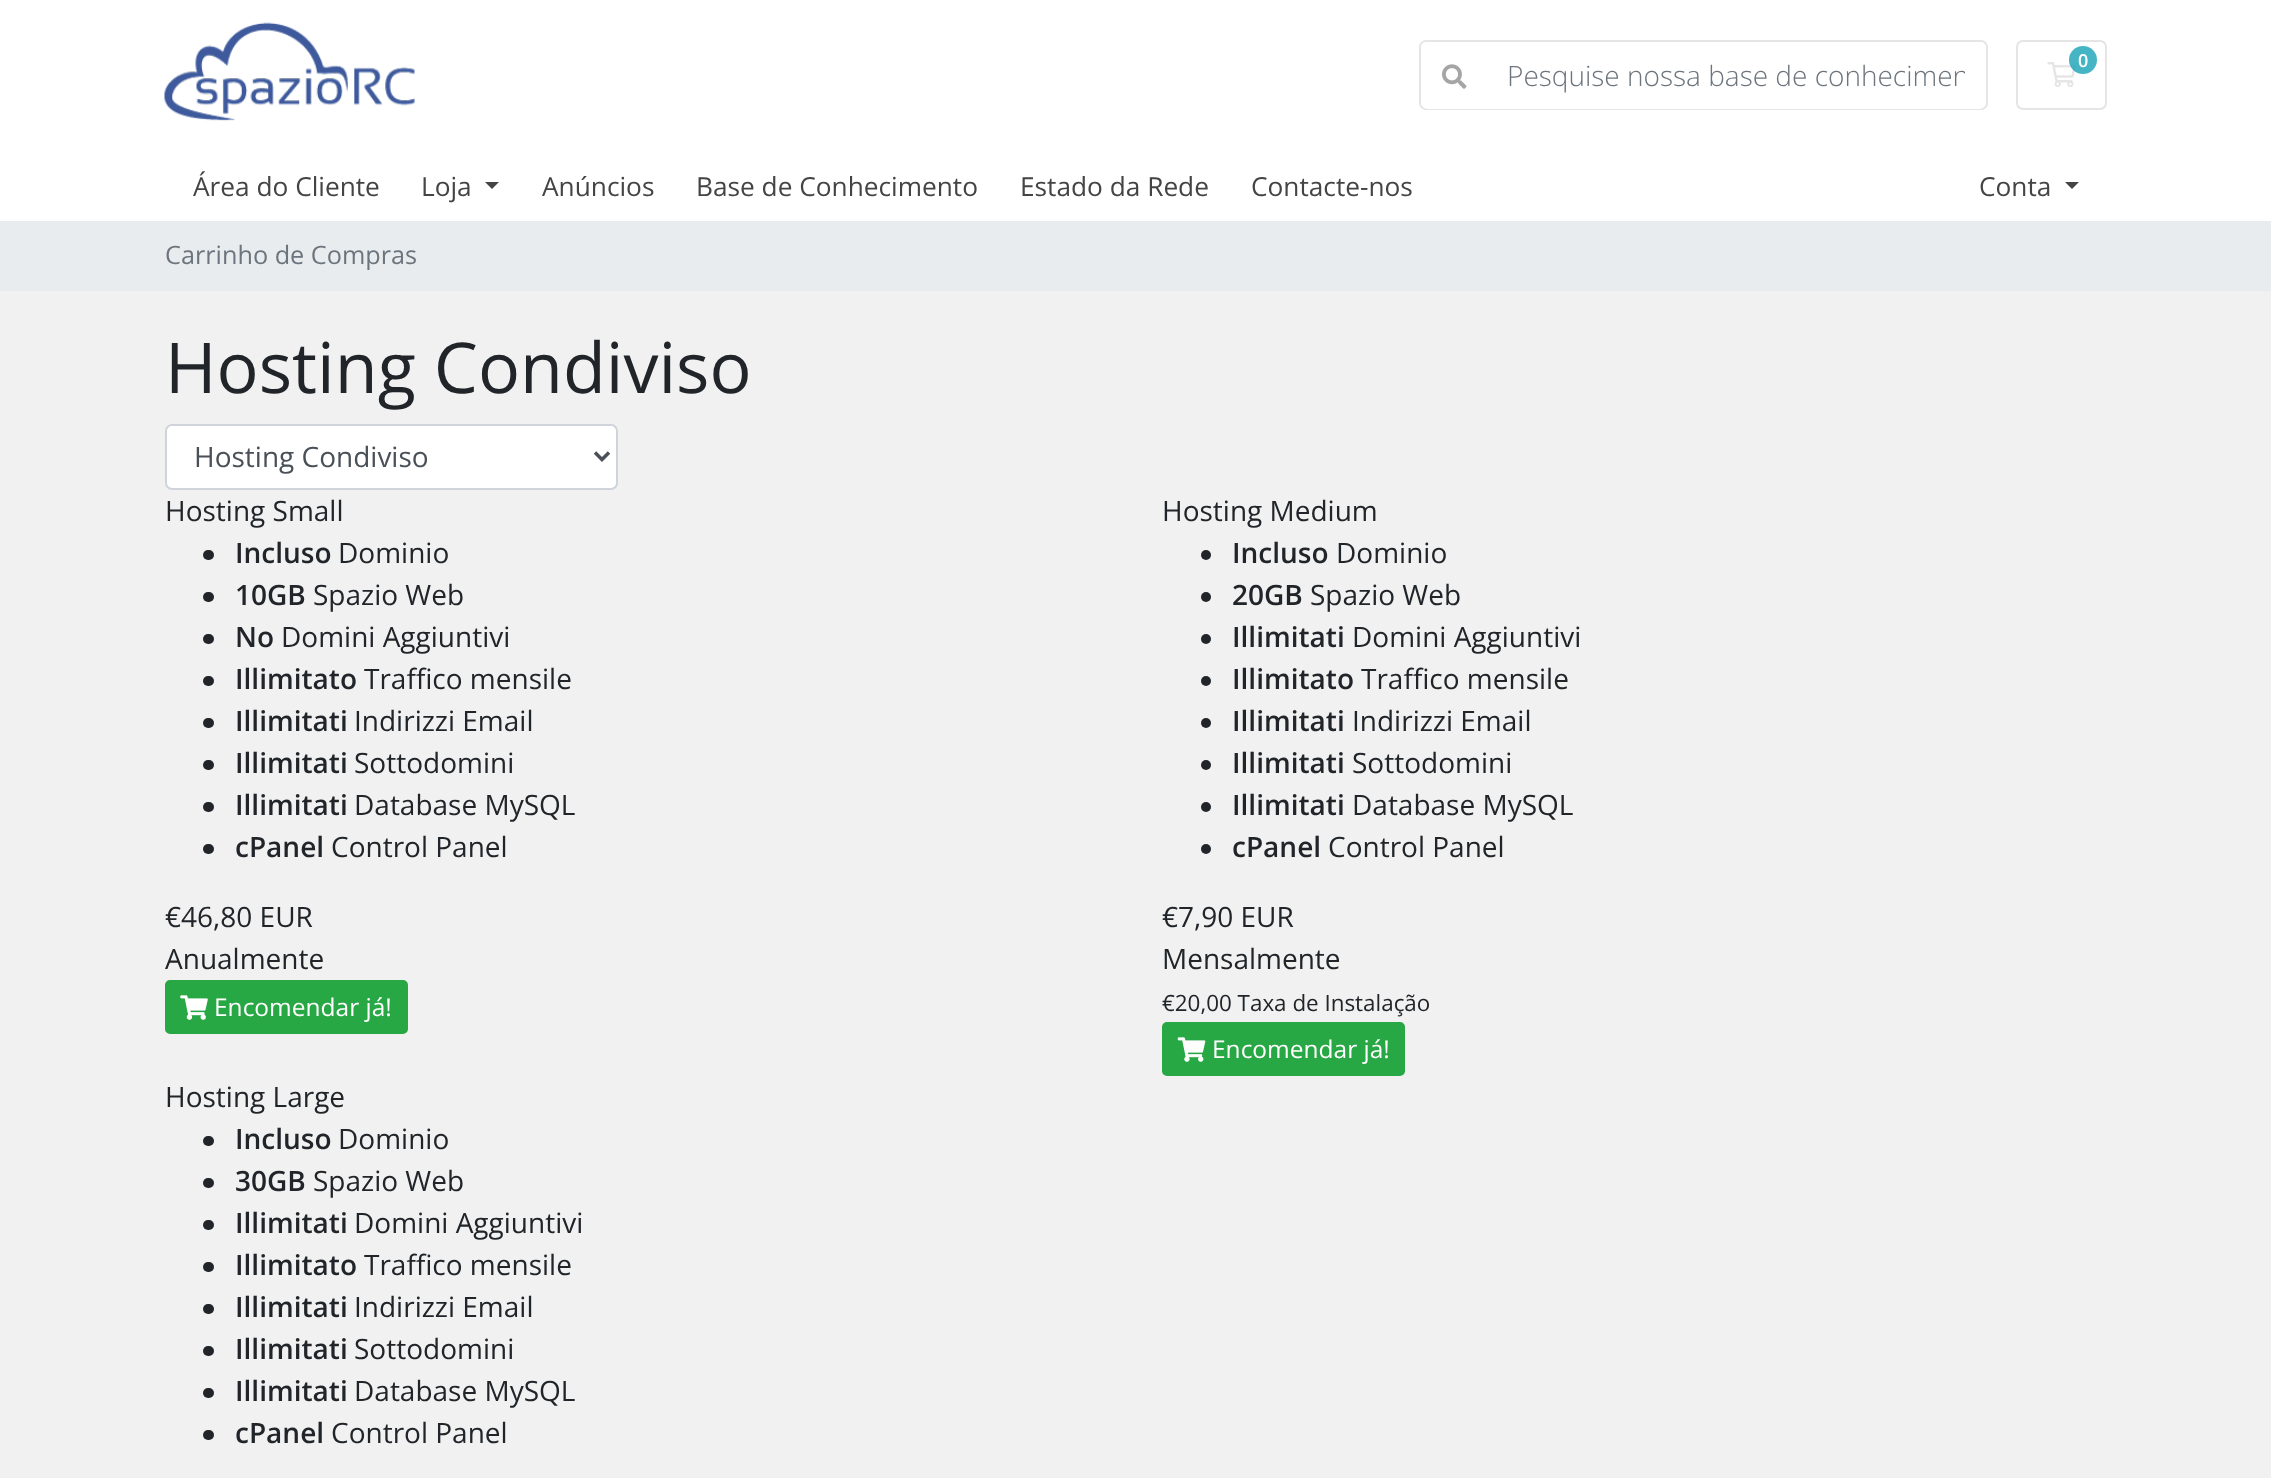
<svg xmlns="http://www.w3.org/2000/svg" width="2271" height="1478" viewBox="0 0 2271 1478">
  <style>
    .t1 { font: 600 18px Open Sans; fill: #fff; }
    .t2 { font: 300 28px Open Sans; fill: #6c757d; }
    .t3 { font: 26.25px Open Sans; fill: #444; }
    .t4 { font: 25.25px Open Sans; fill: #6c757d; }
    .t5 { font: 70px Open Sans; fill: #212529; }
    .t6 { font: 28px Open Sans; fill: #495057; }
    .t7 { font: 28px Open Sans; fill: #212529; }
    .t8 { font: 600 28px Open Sans; fill: #212529; }
    .t9 { font: 24.5px Open Sans; fill: #fff; }
    .t10 { font: 22.4px Open Sans; fill: #212529; }
  </style>
  <defs>
    <clipPath id="clip1"><rect x="1507" y="56" width="458" height="39"/></clipPath>
  </defs>
  <rect width="100%" height="100%" fill="#f1f1f1"/>
  <rect x="0" y="0" width="2271" height="221" fill="#fff"/>
  <image x="164" y="22" width="251" height="99" href="images/1.png"/>
  <rect x="2017" y="41" width="89" height="68" rx="6" fill="none" stroke="#e5e5e5" stroke-width="2"/>
  <image x="2047" y="62" width="29" height="25" href="images/2.png"/>
  <circle cx="2083" cy="60" r="14" fill="#17a2b8cc"/>
  <text x="2078" y="67" class="t1">0</text>
  <rect x="1420" y="41" width="567" height="68" rx="6" fill="none" stroke="#e5e5e5" stroke-width="2"/>
  <path d="M1486 42H1979C1983 42 1986 45 1986 49V102C1986 106 1983 109 1979 109H1486Z" fill="#fff"/>
  <path d="M1428 42H1488V109H1428C1424 109 1421 106 1421 102V49C1421 45 1424 42 1428 42Z" fill="#fff"/>
  <image x="1442" y="64" width="25" height="25" href="images/3.png"/>
  <g clip-path="url(#clip1)">
    <text x="1507" y="86" class="t2">Pesquise nossa base de conhecimen</text>
  </g>
  <text x="193" y="196" class="t3">Área do Cliente</text>
  <text x="421" y="196" class="t3">Loja</text>
  <path d="M485 182H499L492 189Z" fill="#444"/>
  <text x="542" y="196" class="t3">Anúncios</text>
  <text x="696" y="196" class="t3">Base de Conhecimento</text>
  <text x="1020" y="196" class="t3">Estado da Rede</text>
  <text x="1251" y="196" class="t3">Contacte-nos</text>
  <text x="1979" y="196" class="t3">Conta</text>
  <path d="M2065 182H2079L2072 189Z" fill="#444"/>
  <rect x="0" y="221" width="2271" height="70" fill="#e9ecef"/>
  <text x="165" y="264" class="t4">Carrinho de Compras</text>
  <text x="165" y="393" class="t5">Hosting Condiviso</text>
  <rect x="166" y="425" width="451" height="64" rx="6" fill="#fff" stroke="#ced4da" stroke-width="2"/>
  <path d="M595 452.5L602 459.5L609 452.5" fill="none" stroke="#495057" stroke-width="3.5"/>
  <text x="194" y="467" class="t6">Hosting Condiviso</text>
  <text x="165" y="521" class="t7">Hosting Small</text>
  <rect x="203" y="550" width="11" height="10" rx="5" fill="#212529"/>
  <text x="235" y="563" class="t8">Incluso</text>
  <text x="338" y="563" class="t7">Dominio</text>
  <rect x="203" y="592" width="11" height="10" rx="5" fill="#212529"/>
  <text x="235" y="605" class="t8">10GB</text>
  <text x="313" y="605" class="t7">Spazio Web</text>
  <rect x="203" y="634" width="11" height="10" rx="5" fill="#212529"/>
  <text x="235" y="647" class="t8">No</text>
  <text x="281" y="647" class="t7">Domini Aggiuntivi</text>
  <rect x="203" y="676" width="11" height="10" rx="5" fill="#212529"/>
  <text x="235" y="689" class="t8">Illimitato</text>
  <text x="364" y="689" class="t7">Traffico mensile</text>
  <rect x="203" y="718" width="11" height="10" rx="5" fill="#212529"/>
  <text x="235" y="731" class="t8">Illimitati</text>
  <text x="354" y="731" class="t7">Indirizzi Email</text>
  <rect x="203" y="760" width="11" height="10" rx="5" fill="#212529"/>
  <text x="235" y="773" class="t8">Illimitati</text>
  <text x="354" y="773" class="t7">Sottodomini</text>
  <rect x="203" y="802" width="11" height="10" rx="5" fill="#212529"/>
  <text x="235" y="815" class="t8">Illimitati</text>
  <text x="354" y="815" class="t7">Database MySQL</text>
  <rect x="203" y="844" width="11" height="10" rx="5" fill="#212529"/>
  <text x="235" y="857" class="t8">cPanel</text>
  <text x="331" y="857" class="t7">Control Panel</text>
  <text x="165" y="927" class="t7">€46,80 EUR</text>
  <text x="165" y="969" class="t7">Anualmente</text>
  <rect x="166" y="981" width="241" height="52" rx="4" fill="#28a745" stroke="#28a745" stroke-width="2"/>
  <image x="180" y="995" width="28" height="25" href="images/4.png"/>
  <text x="214" y="1016" class="t9">Encomendar já!</text>
  <text x="1162" y="521" class="t7">Hosting Medium</text>
  <circle cx="1206" cy="555" r="5" fill="#212529"/>
  <text x="1232" y="563" class="t8">Incluso</text>
  <text x="1336" y="563" class="t7">Dominio</text>
  <circle cx="1206" cy="597" r="5" fill="#212529"/>
  <text x="1232" y="605" class="t8">20GB</text>
  <text x="1310" y="605" class="t7">Spazio Web</text>
  <circle cx="1206" cy="639" r="5" fill="#212529"/>
  <text x="1232" y="647" class="t8">Illimitati</text>
  <text x="1352" y="647" class="t7">Domini Aggiuntivi</text>
  <circle cx="1206" cy="681" r="5" fill="#212529"/>
  <text x="1232" y="689" class="t8">Illimitato</text>
  <text x="1361" y="689" class="t7">Traffico mensile</text>
  <circle cx="1206" cy="723" r="5" fill="#212529"/>
  <text x="1232" y="731" class="t8">Illimitati</text>
  <text x="1352" y="731" class="t7">Indirizzi Email</text>
  <circle cx="1206" cy="765" r="5" fill="#212529"/>
  <text x="1232" y="773" class="t8">Illimitati</text>
  <text x="1352" y="773" class="t7">Sottodomini</text>
  <circle cx="1206" cy="807" r="5" fill="#212529"/>
  <text x="1232" y="815" class="t8">Illimitati</text>
  <text x="1352" y="815" class="t7">Database MySQL</text>
  <circle cx="1206" cy="849" r="5" fill="#212529"/>
  <text x="1232" y="857" class="t8">cPanel</text>
  <text x="1328" y="857" class="t7">Control Panel</text>
  <text x="1162" y="927" class="t7">€7,90 EUR</text>
  <text x="1162" y="969" class="t7">Mensalmente</text>
  <text x="1162" y="1011" class="t10">€20,00 Taxa de Instalação</text>
  <rect x="1163" y="1023" width="241" height="52" rx="4" fill="#28a745" stroke="#28a745" stroke-width="2"/>
  <image x="1177" y="1037" width="29" height="25" href="images/5.png"/>
  <text x="1212" y="1058" class="t9">Encomendar já!</text>
  <text x="165" y="1107" class="t7">Hosting Large</text>
  <rect x="203" y="1136" width="11" height="10" rx="5" fill="#212529"/>
  <text x="235" y="1149" class="t8">Incluso</text>
  <text x="338" y="1149" class="t7">Dominio</text>
  <rect x="203" y="1178" width="11" height="10" rx="5" fill="#212529"/>
  <text x="235" y="1191" class="t8">30GB</text>
  <text x="313" y="1191" class="t7">Spazio Web</text>
  <rect x="203" y="1220" width="11" height="10" rx="5" fill="#212529"/>
  <text x="235" y="1233" class="t8">Illimitati</text>
  <text x="354" y="1233" class="t7">Domini Aggiuntivi</text>
  <rect x="203" y="1262" width="11" height="10" rx="5" fill="#212529"/>
  <text x="235" y="1275" class="t8">Illimitato</text>
  <text x="364" y="1275" class="t7">Traffico mensile</text>
  <rect x="203" y="1304" width="11" height="10" rx="5" fill="#212529"/>
  <text x="235" y="1317" class="t8">Illimitati</text>
  <text x="354" y="1317" class="t7">Indirizzi Email</text>
  <rect x="203" y="1346" width="11" height="10" rx="5" fill="#212529"/>
  <text x="235" y="1359" class="t8">Illimitati</text>
  <text x="354" y="1359" class="t7">Sottodomini</text>
  <rect x="203" y="1388" width="11" height="10" rx="5" fill="#212529"/>
  <text x="235" y="1401" class="t8">Illimitati</text>
  <text x="354" y="1401" class="t7">Database MySQL</text>
  <rect x="203" y="1430" width="11" height="10" rx="5" fill="#212529"/>
  <text x="235" y="1443" class="t8">cPanel</text>
  <text x="331" y="1443" class="t7">Control Panel</text>
</svg>
